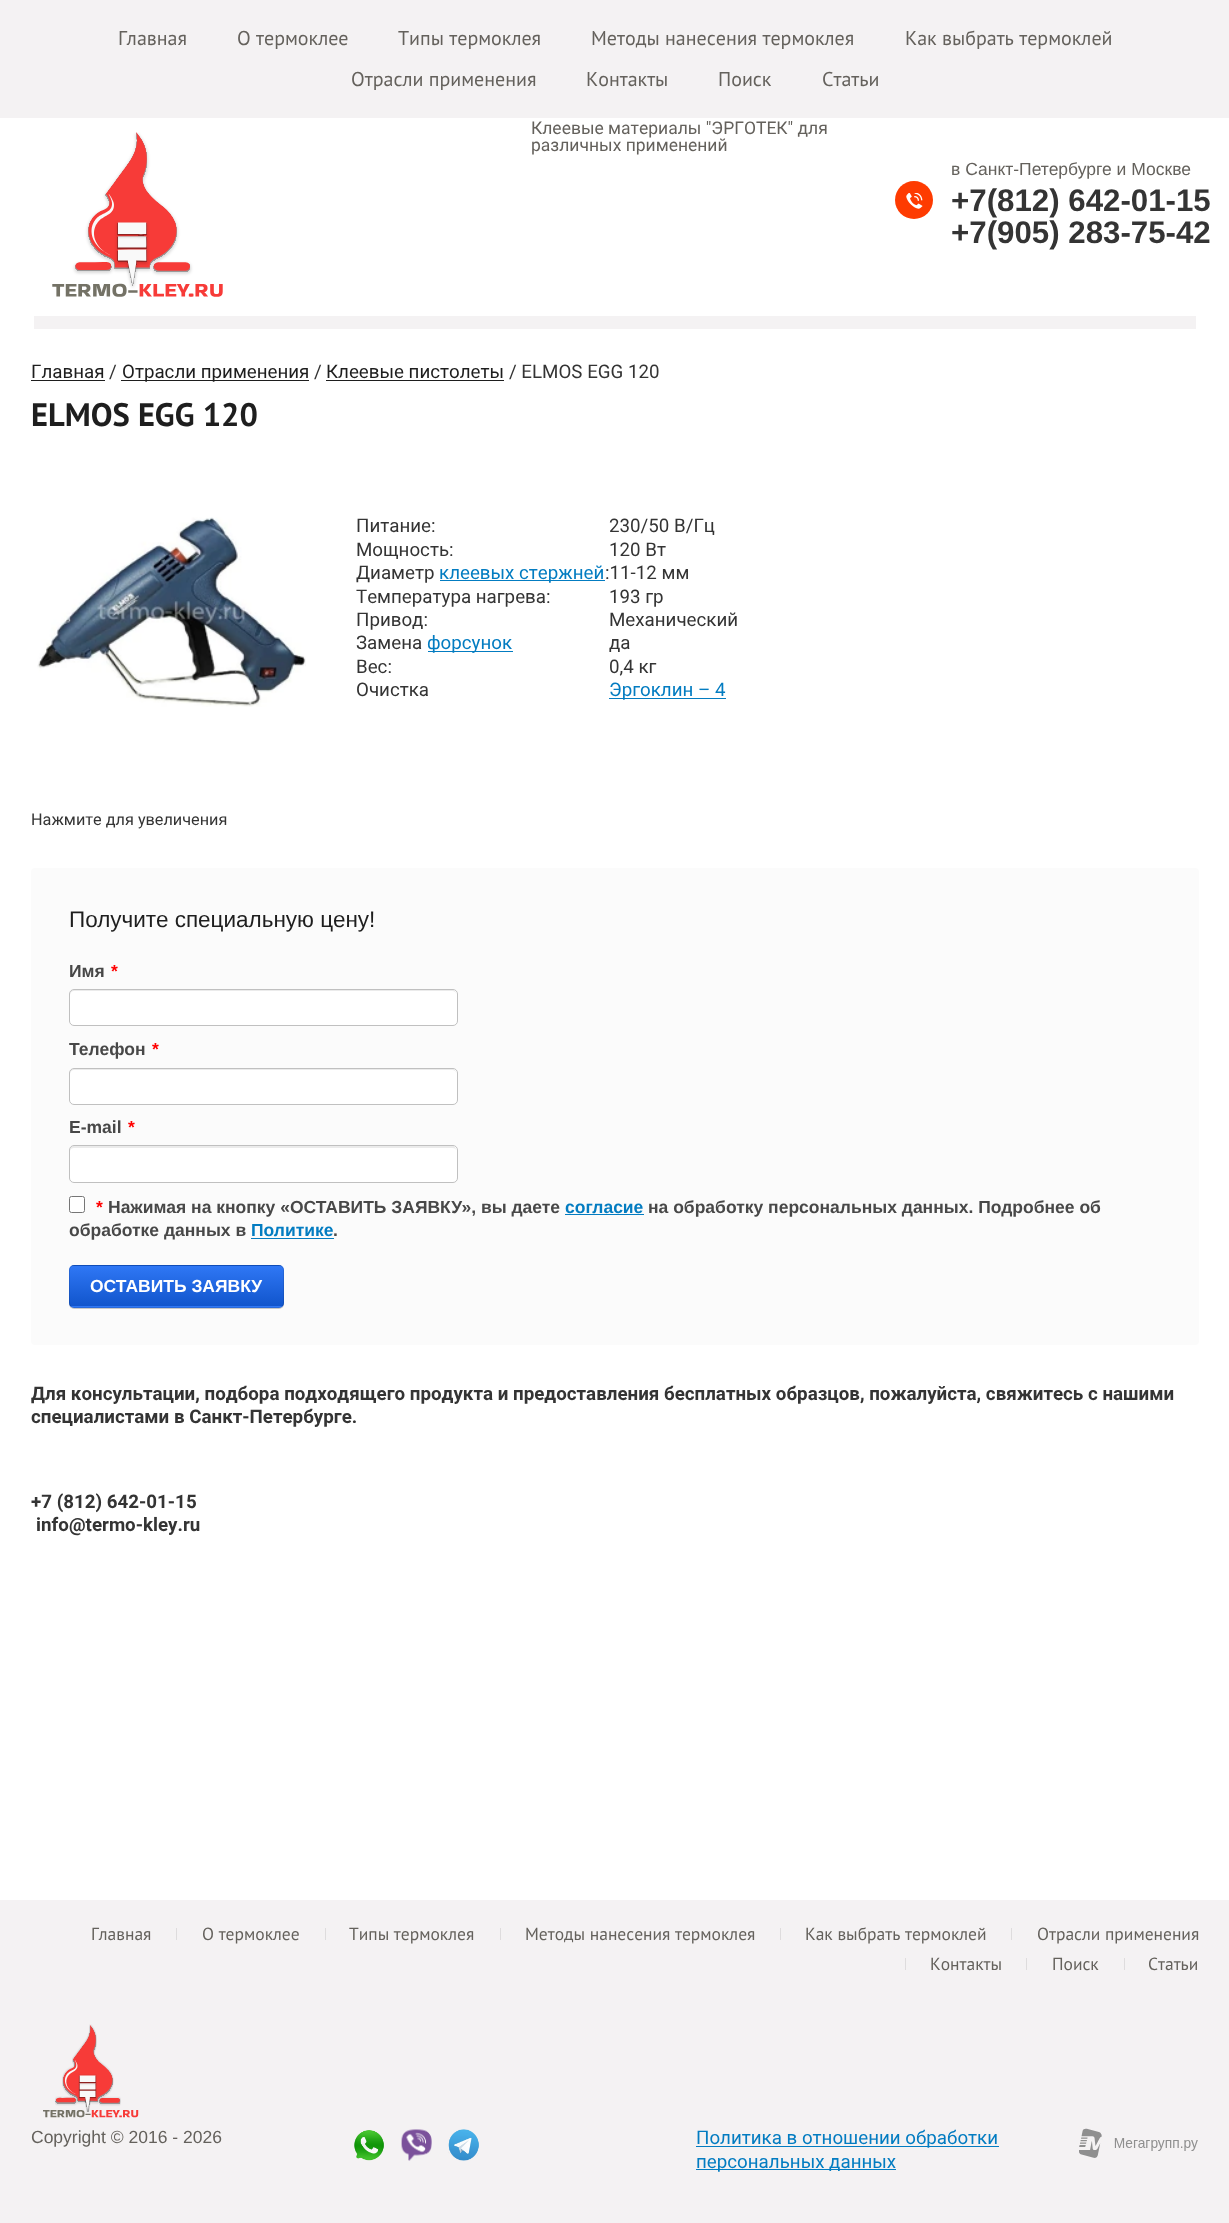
<svg xmlns="http://www.w3.org/2000/svg" width="1229" height="2223" viewBox="0 0 1229 2223">
  <style>
    .t1 { font: 20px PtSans; fill: #64615c; }
    .t2 { font: 17.5px Roboto; fill: #64615c; }
    .t3 { font: 17.5px Liberation Sans; fill: #64615c; }
    .t4 { font: bold 31.25px Liberation Sans; fill: #343434; }
    .t5 { font: 18.75px Roboto; fill: #1e1e1e; }
    .t6 { font: 18.75px Roboto; fill: #343434; }
    .t7 { font: bold 32.5px PtSans; fill: #1e1e1e; }
    .t8 { font: 18.75px Roboto; fill: #037cc1; }
    .t9 { font: 16.25px Roboto; fill: #343434; }
    .t10 { font: 22.5px Liberation Sans; fill: #1e1e1e; }
    .t11 { font: bold 17.5px Liberation Sans; fill: #484848; }
    .t12 { font: bold 17.5px Liberation Sans; fill: #f00; }
    .t13 { font: bold 17.5px Liberation Sans; fill: #037cc1; }
    .t14 { font: bold 17.5px Liberation Sans; fill: #fff; }
    .t15 { font: bold 18.75px Roboto; fill: #343434; }
    .t16 { font: 17.5px PtSans; fill: #64615c; }
  </style>
  <defs>
    <clipPath id="clip1"><rect x="69" y="1265" width="215" height="43" rx="5"/></clipPath>
    <linearGradient id="g1" gradientUnits="userSpaceOnUse" x1="176" y1="1226" x2="176" y2="1266"><stop offset="0" stop-color="#2f77f5"/><stop offset="1" stop-color="#15c"/></linearGradient>
    <linearGradient id="g2" gradientUnits="userSpaceOnUse" x1="176" y1="1266" x2="176" y2="1306"><stop offset="0" stop-color="#2f77f5"/><stop offset="1" stop-color="#15c"/></linearGradient>
    <linearGradient id="g3" gradientUnits="userSpaceOnUse" x1="176" y1="1306" x2="176" y2="1346"><stop offset="0" stop-color="#2f77f5"/><stop offset="1" stop-color="#15c"/></linearGradient>
  </defs>
  <rect width="100%" height="100%" fill="#fff"/>
  <rect x="0" y="0" width="1229" height="118" fill="#f4f2f3"/>
  <text x="118" y="45" class="t1">Главная</text>
  <text x="237" y="45" class="t1">О термоклее</text>
  <text x="398" y="45" class="t1">Типы термоклея</text>
  <text x="591" y="45" class="t1">Методы нанесения термоклея</text>
  <text x="905" y="45" class="t1">Как выбрать термоклей</text>
  <text x="351" y="86" class="t1">Отрасли применения</text>
  <text x="586" y="86" class="t1">Контакты</text>
  <text x="718" y="86" class="t1">Поиск</text>
  <text x="822" y="86" class="t1">Статьи</text>
  <image x="52" y="132" width="171" height="165" href="images/1.png"/>
  <text x="531" y="134" class="t2">Клеевые материалы "ЭРГОТЕК" для</text>
  <text x="531" y="151" class="t2">различных применений</text>
  <text x="951" y="175" class="t3">в Санкт-Петербурге и Москве</text>
  <circle cx="914" cy="200" r="19" fill="#fe3b01"/>
  <image x="906" y="193" width="17" height="16" href="images/2.png"/>
  <text x="951" y="211" class="t4">+7(812) 642-01-15</text>
  <text x="951" y="243" class="t4">+7(905) 283-75-42</text>
  <rect x="34" y="316" width="1162" height="13" fill="#f4f2f3"/>
  <text x="31" y="378" class="t5">Главная</text>
  <rect x="31" y="380" width="74" height="1" fill="#1e1e1e"/>
  <text x="109" y="378" class="t6">/</text>
  <rect x="121" y="380" width="188" height="1" fill="#1e1e1e"/>
  <text x="122" y="378" class="t5">Отрасли применения</text>
  <text x="314" y="378" class="t6">/</text>
  <text x="326" y="378" class="t5">Клеевые пистолеты</text>
  <rect x="326" y="380" width="178" height="1" fill="#1e1e1e"/>
  <text x="509" y="378" class="t6">/ ELMOS EGG 120</text>
  <text x="31" y="426" class="t7">ELMOS EGG 120</text>
  <image x="37" y="517" width="269" height="190" href="images/3.png"/>
  <text x="356" y="532" class="t6">Питание:</text>
  <text x="609" y="532" class="t6">230/50 В/Гц</text>
  <text x="356" y="556" class="t6">Мощность:</text>
  <text x="609" y="556" class="t6">120 Вт</text>
  <text x="356" y="579" class="t6">Диаметр</text>
  <rect x="440" y="580" width="165" height="1" fill="#037cc1"/>
  <text x="439" y="579" class="t8">клеевых стержней</text>
  <text x="605" y="579" class="t6">:11-12 мм</text>
  <text x="356" y="603" class="t6">Температура нагрева:</text>
  <text x="609" y="603" class="t6">193 гр</text>
  <text x="356" y="626" class="t6">Привод:</text>
  <text x="609" y="626" class="t6">Механический</text>
  <text x="356" y="649" class="t6">Замена</text>
  <rect x="428" y="651" width="85" height="1" fill="#037cc1"/>
  <text x="427" y="649" class="t8">форсунок</text>
  <text x="609" y="649" class="t6">да</text>
  <text x="356" y="673" class="t6">Вес:</text>
  <text x="609" y="673" class="t6">0,4 кг</text>
  <text x="356" y="696" class="t6">Очистка</text>
  <rect x="609" y="698" width="117" height="1" fill="#037cc1"/>
  <text x="609" y="696" class="t8">Эргоклин – 4</text>
  <text x="31" y="825" class="t9">Нажмите для увеличения</text>
  <rect x="31" y="868" width="1168" height="477" rx="4" fill="#fbfbfb"/>
  <text x="69" y="927" class="t10">Получите специальную цену!</text>
  <text x="69" y="977" class="t11">Имя</text>
  <text x="111" y="977" class="t12">*</text>
  <rect x="69" y="989" width="389" height="37" rx="5" fill="#fff"/>
  <path d="M74 991H452C455 991 456 993 456 995C456 992 455 990 452 990H74C71 990 70 992 70 995C70 993 72 991 74 991Z" fill="#ebebeb"/>
  <rect x="69.5" y="989.5" width="388" height="36" rx="4.5" fill="none" stroke="#c0c0c0"/>
  <text x="69" y="1055" class="t11">Телефон</text>
  <text x="152" y="1055" class="t12">*</text>
  <rect x="69" y="1068" width="389" height="37" rx="5" fill="#fff"/>
  <path d="M74 1070H452C455 1070 456 1072 456 1074C456 1071 455 1069 452 1069H74C71 1069 70 1071 70 1074C70 1072 72 1070 74 1070Z" fill="#ebebeb"/>
  <rect x="69.5" y="1068.5" width="388" height="36" rx="4.5" fill="none" stroke="#c0c0c0"/>
  <text x="69" y="1133" class="t11">E-mail</text>
  <text x="128" y="1133" class="t12">*</text>
  <rect x="69" y="1145" width="389" height="38" rx="5" fill="#fff"/>
  <path d="M74 1148H452C455 1148 456 1149 456 1151C456 1148 455 1146 452 1146H74C71 1146 70 1148 70 1151C70 1149 72 1148 74 1148Z" fill="#ebebeb"/>
  <rect x="69.5" y="1145.5" width="388" height="37" rx="4.5" fill="none" stroke="#c0c0c0"/>
  <rect x="69.5" y="1196.5" width="15" height="16" rx="2" fill="#fff" stroke="#767676"/>
  <text x="96" y="1213" class="t12">*</text>
  <text x="108" y="1213" class="t11">Нажимая на кнопку «ОСТАВИТЬ ЗАЯВКУ», вы даете</text>
  <text x="565" y="1213" class="t13">согласие</text>
  <rect x="565" y="1214" width="79" height="1" fill="#037cc1"/>
  <text x="648" y="1213" class="t11">на обработку персональных данных. Подробнее об</text>
  <text x="69" y="1236" class="t11">обработке данных в</text>
  <text x="251" y="1236" class="t13">Политике</text>
  <rect x="251" y="1238" width="83" height="1" fill="#037cc1"/>
  <text x="333" y="1236" class="t11">.</text>
  <rect x="69" y="1266" width="215" height="43" rx="5" fill="#00000033" filter="blur(0.5px)"/>
  <g clip-path="url(#clip1)">
    <rect x="69" y="1265" width="215" height="1" fill="url(#g1)"/>
    <rect x="69" y="1266" width="215" height="40" fill="url(#g2)"/>
    <rect x="69" y="1306" width="215" height="2" fill="url(#g3)"/>
  </g>
  <rect x="69.5" y="1265.5" width="214" height="42" rx="4.5" fill="none" stroke="#0000001a"/>
  <text x="90" y="1292" class="t14">ОСТАВИТЬ ЗАЯВКУ</text>
  <text x="31" y="1400" class="t15">Для консультации, подбора подходящего продукта и предоставления бесплатных образцов, пожалуйста, свяжитесь с нашими</text>
  <text x="31" y="1423" class="t15">специалистами в Санкт-Петербурге.</text>
  <text x="31" y="1508" class="t15">+7 (812) 642-01-15</text>
  <text x="36" y="1531" class="t15">info@termo-kley.ru</text>
  <rect x="0" y="1900" width="1229" height="323" fill="#f4f2f3"/>
  <text x="91" y="1940" class="t16">Главная</text>
  <rect x="176" y="1928" width="1" height="12" fill="#dedcdd"/>
  <text x="202" y="1940" class="t16">О термоклее</text>
  <rect x="325" y="1928" width="1" height="12" fill="#dedcdd"/>
  <text x="349" y="1940" class="t16">Типы термоклея</text>
  <rect x="500" y="1928" width="1" height="12" fill="#dedcdd"/>
  <text x="525" y="1940" class="t16">Методы нанесения термоклея</text>
  <rect x="780" y="1928" width="1" height="12" fill="#dedcdd"/>
  <text x="805" y="1940" class="t16">Как выбрать термоклей</text>
  <rect x="1011" y="1928" width="1" height="12" fill="#dedcdd"/>
  <text x="1037" y="1940" class="t16">Отрасли применения</text>
  <rect x="905" y="1958" width="1" height="12" fill="#dedcdd"/>
  <text x="930" y="1970" class="t16">Контакты</text>
  <rect x="1026" y="1958" width="1" height="12" fill="#dedcdd"/>
  <text x="1052" y="1970" class="t16">Поиск</text>
  <rect x="1124" y="1958" width="1" height="12" fill="#dedcdd"/>
  <text x="1148" y="1970" class="t16">Статьи</text>
  <image x="43" y="2024" width="96" height="94" href="images/4.png"/>
  <text x="31" y="2143" class="t3">Copyright © 2016 - 2026</text>
  <image x="354" y="2130" width="30" height="31" href="images/5.png"/>
  <image x="401" y="2129" width="31" height="32" href="images/6.png"/>
  <image x="448" y="2129" width="31" height="32" href="images/7.png"/>
  <rect x="696" y="2146" width="303" height="1" fill="#037cc1"/>
  <text x="696" y="2144" class="t8">Политика в отношении обработки</text>
  <rect x="696" y="2169" width="200" height="1" fill="#037cc1"/>
  <text x="696" y="2168" class="t8">персональных данных</text>
  <image x="1079" y="2128" width="119" height="30" href="images/8.png"/>
</svg>
